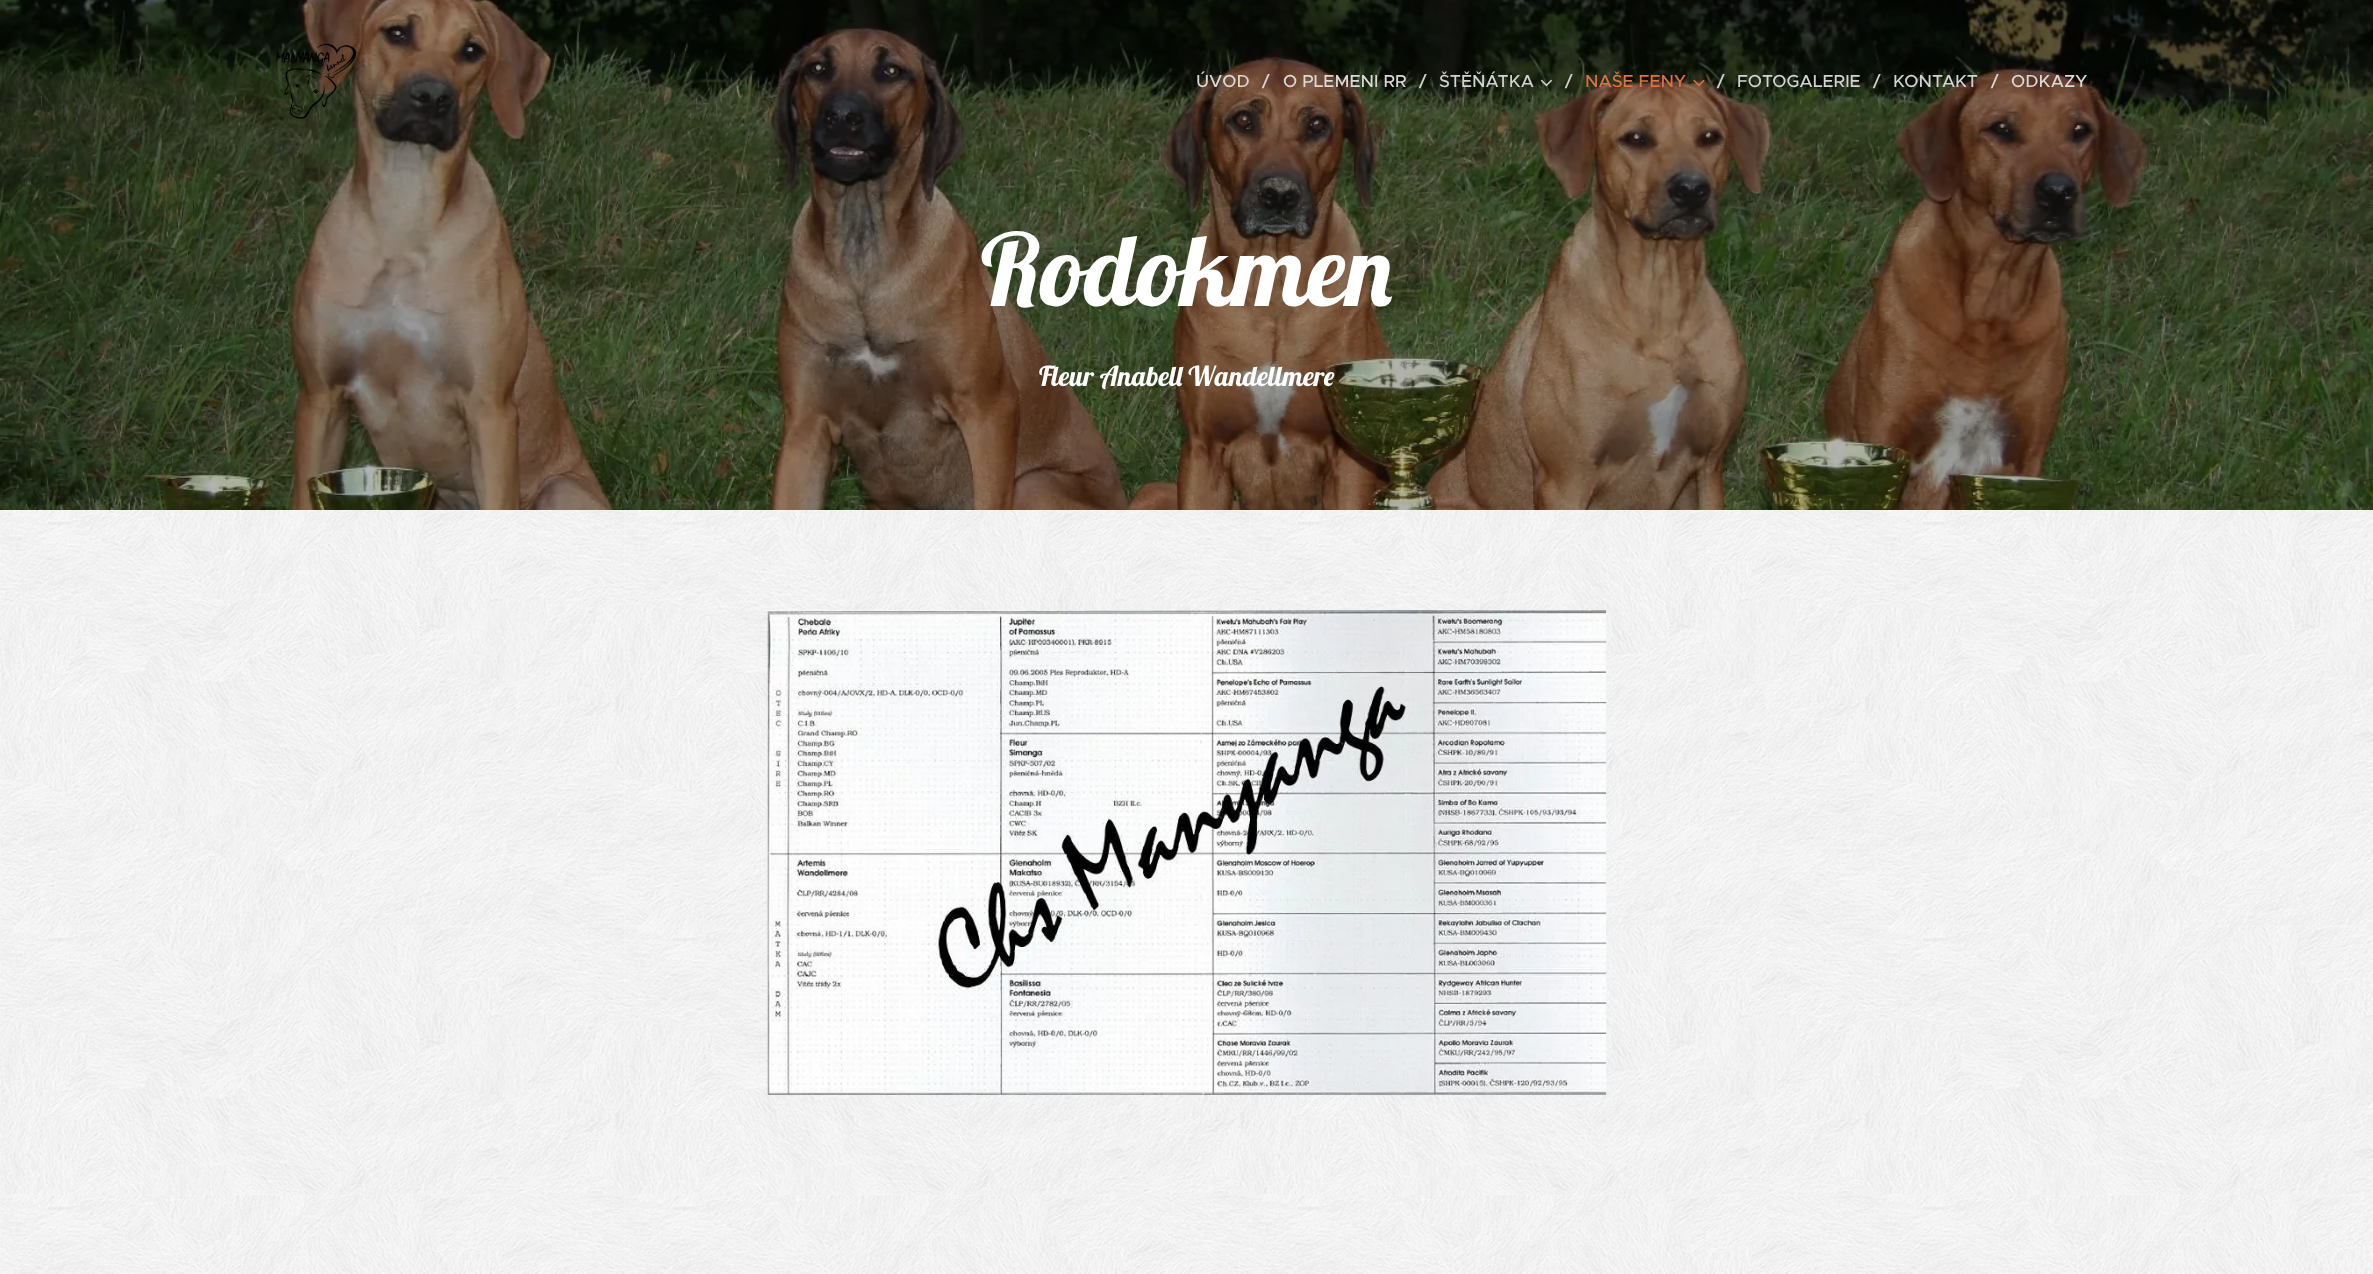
<svg xmlns="http://www.w3.org/2000/svg" width="2373" height="1274" viewBox="0 0 2373 1274">
  <style>
    .t1 { font: 500 17.5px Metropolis; fill: #ddd8d5; }
    .t2 { font: 500 17.5px Metropolis; fill: #d2d3d0; }
    .t3 { font: 500 17.5px Metropolis; fill: #db7343; }
    .t4 { font: 100px Lobster; fill: #fff; }
    .t5 { font: 27.5px Lobster; fill: #fff; }
  </style>
  <rect width="100%" height="100%" fill="#fff"/>
  <image x="0" y="0" width="2373" height="510" href="images/4.png"/>
  <image x="276" y="43" width="81" height="76" href="images/1.png"/>
  <text x="1196" y="87" class="t1">ÚVOD</text>
  <text x="1262" y="87" class="t1">/</text>
  <text x="1283" y="87" class="t1">O PLEMENI RR</text>
  <text x="1419" y="87" class="t2">/</text>
  <text x="1439" y="87" class="t2">ŠTĚŇÁTKA</text>
  <text x="1565" y="87" class="t2">/</text>
  <image x="1540" y="79" width="12" height="8" href="images/2.png"/>
  <text x="1585" y="87" class="t3">NAŠE FENY</text>
  <text x="1717" y="87" class="t2">/</text>
  <image x="1693" y="79" width="12" height="8" href="images/3.png"/>
  <text x="1737" y="87" class="t2">FOTOGALERIE</text>
  <text x="1873" y="87" class="t2">/</text>
  <text x="1893" y="87" class="t2">KONTAKT</text>
  <text x="1991" y="87" class="t1">/</text>
  <text x="2011" y="87" class="t1">ODKAZY</text>
  <text x="981" y="306" class="t4">Rodokmen</text>
  <text x="1039" y="386" class="t5">Fleur Anabell Wandellmere</text>
  <image x="0" y="510" width="2373" height="685" href="images/5.png"/>
  <image x="767" y="610" width="840" height="485" href="images/6.png"/>
  <image x="0" y="1195" width="2373" height="79" href="images/7.png"/>
</svg>
